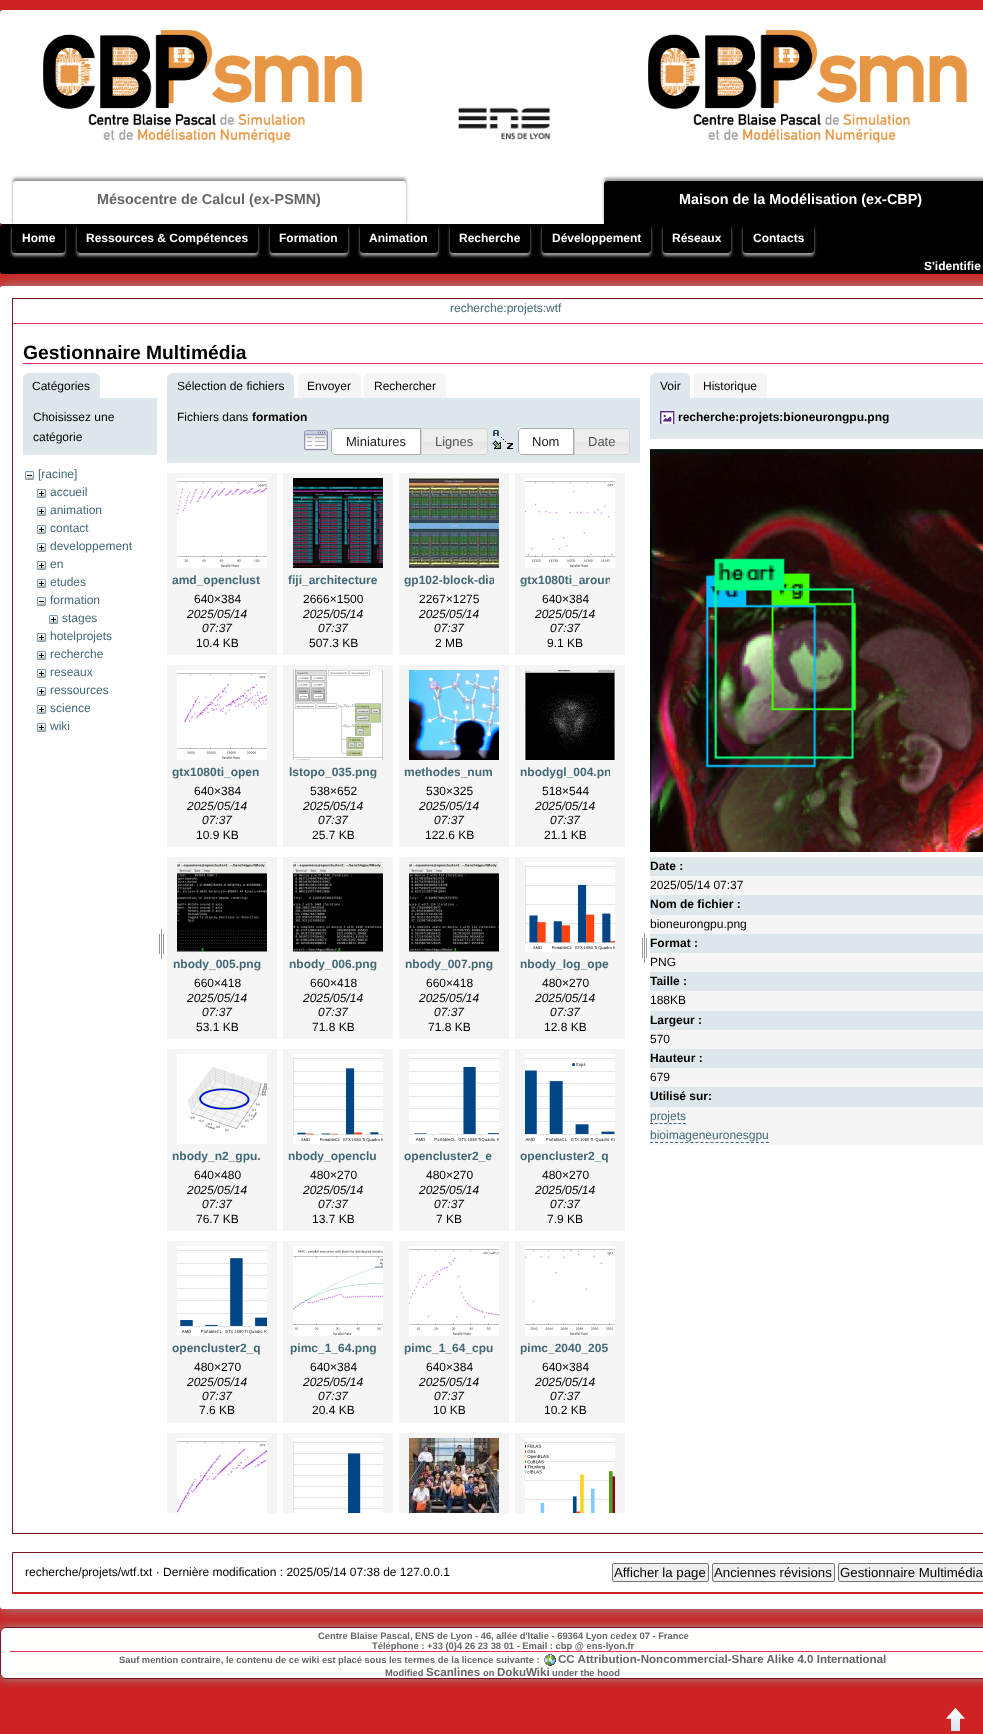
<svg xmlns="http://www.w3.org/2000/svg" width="983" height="1734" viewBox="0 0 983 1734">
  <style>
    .t1 { font: bold 14.4px Liberation Sans; fill: #666; }
    .t2 { font: bold 14.4px Liberation Sans; fill: #fff; }
    .t3 { font: bold 12px Liberation Sans; fill: #fff; }
    .t4 { font: 12px Liberation Sans; fill: #436976; }
    .t5 { font: bold 19.25px Liberation Sans; fill: #000; }
    .t6 { font: 12px Liberation Sans; fill: #000; }
    .t7 { font: bold 12px Liberation Sans; fill: #000; }
    .t8 { font: 13px Liberation Sans; fill: #212121; }
    .t9 { font: 13px Liberation Sans; fill: #555; }
    .t10 { font: bold 12px Liberation Sans; fill: #436976; }
    .t11 { font: italic 12px Liberation Sans; fill: #000; }
    .t12 { font: 13.25px Liberation Sans; fill: #000; }
    .t13 { font: bold 9.35px Liberation Sans; fill: #666; }
    .t14 { font: bold 11.6px Liberation Sans; fill: #666; }
  </style>
  <defs>
    <clipPath id="clip1"><path d="M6 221H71V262H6ZM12 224H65V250C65 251.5 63.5 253 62 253H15C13.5 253 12 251.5 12 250Z" clip-rule="evenodd"/></clipPath>
    <clipPath id="clip2"><path d="M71 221H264V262H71ZM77 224H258V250C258 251.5 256.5 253 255 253H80C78.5 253 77 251.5 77 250Z" clip-rule="evenodd"/></clipPath>
    <clipPath id="clip3"><path d="M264 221H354V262H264ZM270 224H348V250C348 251.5 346.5 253 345 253H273C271.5 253 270 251.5 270 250Z" clip-rule="evenodd"/></clipPath>
    <clipPath id="clip4"><path d="M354 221H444V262H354ZM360 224H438V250C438 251.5 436.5 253 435 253H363C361.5 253 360 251.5 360 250Z" clip-rule="evenodd"/></clipPath>
    <clipPath id="clip5"><path d="M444 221H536V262H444ZM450 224H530V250C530 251.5 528.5 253 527 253H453C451.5 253 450 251.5 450 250Z" clip-rule="evenodd"/></clipPath>
    <clipPath id="clip6"><path d="M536 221H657V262H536ZM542 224H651V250C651 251.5 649.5 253 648 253H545C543.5 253 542 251.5 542 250Z" clip-rule="evenodd"/></clipPath>
    <clipPath id="clip7"><path d="M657 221H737V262H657ZM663 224H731V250C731 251.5 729.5 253 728 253H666C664.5 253 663 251.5 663 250Z" clip-rule="evenodd"/></clipPath>
    <clipPath id="clip8"><path d="M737 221H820V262H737ZM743 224H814V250C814 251.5 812.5 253 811 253H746C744.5 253 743 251.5 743 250Z" clip-rule="evenodd"/></clipPath>
    <clipPath id="clip9"><rect x="404" y="568" width="90" height="24"/></clipPath>
    <clipPath id="clip10"><rect x="520" y="568" width="90" height="24"/></clipPath>
    <clipPath id="clip11"><rect x="520" y="760" width="90" height="24"/></clipPath>
  </defs>
  <rect width="100%" height="100%" fill="#cd2323"/>
  <rect x="0" y="10" width="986" height="214" rx="3" fill="#fff"/>
  <image x="43" y="29" width="319" height="115" href="images/1.png"/>
  <image x="458" y="107" width="93" height="33" href="images/2.png"/>
  <image x="648" y="29" width="319" height="115" href="images/1.png"/>
  <rect x="0" y="164" width="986" height="60" rx="3" fill="#fff"/>
  <rect x="13" y="178" width="393" height="46" rx="3" fill="#999" filter="blur(1.5px)"/>
  <path d="M16 181H403C404.5 181 406 182.5 406 184V227H13V184C13 182.5 14.5 181 16 181Z" fill="#fff"/>
  <text x="97" y="204" class="t1">Mésocentre de Calcul (ex-PSMN)</text>
  <rect x="604" y="178" width="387" height="46" rx="3" fill="#999" filter="blur(1.5px)"/>
  <path d="M607 181H983C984.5 181 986 182.5 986 184V227H604V184C604 182.5 605.5 181 607 181Z" fill="#000"/>
  <text x="679" y="204" class="t2">Maison de la Modélisation (ex-CBP)</text>
  <rect x="0" y="286" width="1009" height="1323" rx="3" fill="#999" filter="blur(7.5px)"/>
  <rect x="0" y="224" width="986" height="50" rx="3" fill="#000"/>
  <g clip-path="url(#clip1)">
    <rect x="12" y="227" width="53" height="29" rx="3" fill="#999" filter="blur(1.5px)"/>
  </g>
  <text x="22" y="242" class="t3">Home</text>
  <g clip-path="url(#clip2)">
    <rect x="77" y="227" width="181" height="29" rx="3" fill="#999" filter="blur(1.5px)"/>
  </g>
  <text x="86" y="242" class="t3">Ressources &amp; Compétences</text>
  <g clip-path="url(#clip3)">
    <rect x="270" y="227" width="78" height="29" rx="3" fill="#999" filter="blur(1.5px)"/>
  </g>
  <text x="279" y="242" class="t3">Formation</text>
  <g clip-path="url(#clip4)">
    <rect x="360" y="227" width="78" height="29" rx="3" fill="#999" filter="blur(1.5px)"/>
  </g>
  <text x="369" y="242" class="t3">Animation</text>
  <g clip-path="url(#clip5)">
    <rect x="450" y="227" width="80" height="29" rx="3" fill="#999" filter="blur(1.5px)"/>
  </g>
  <text x="459" y="242" class="t3">Recherche</text>
  <g clip-path="url(#clip6)">
    <rect x="542" y="227" width="109" height="29" rx="3" fill="#999" filter="blur(1.5px)"/>
  </g>
  <text x="552" y="242" class="t3">Développement</text>
  <g clip-path="url(#clip7)">
    <rect x="663" y="227" width="68" height="29" rx="3" fill="#999" filter="blur(1.5px)"/>
  </g>
  <text x="672" y="242" class="t3">Réseaux</text>
  <g clip-path="url(#clip8)">
    <rect x="743" y="227" width="71" height="29" rx="3" fill="#999" filter="blur(1.5px)"/>
  </g>
  <text x="753" y="242" class="t3">Contacts</text>
  <text x="924" y="270" class="t3">S'identifie</text>
  <rect x="0" y="286" width="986" height="1323" rx="3" fill="#fff"/>
  <rect x="12.5" y="298.5" width="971" height="1235" fill="none" stroke="#781527"/>
  <rect x="13" y="323" width="970" height="1" fill="#ea2f4c"/>
  <text x="450" y="312" class="t4">recherche:projets:wtf</text>
  <rect x="23" y="363" width="960" height="1" fill="#ea2f4c"/>
  <text x="23" y="359" class="t5">Gestionnaire Multimédia</text>
  <path d="M29 373H94C97.5 373 100 375.5 100 379V398H23V379C23 375.5 25.5 373 29 373Z" fill="#dee7ec"/>
  <text x="32" y="390" class="t6">Catégories</text>
  <rect x="23" y="398" width="134" height="57" fill="#dee7ec"/>
  <text x="33" y="421" class="t6">Choisissez une</text>
  <text x="33" y="441" class="t6">catégorie</text>
  <image x="25" y="471" width="9" height="9" href="images/3.png"/>
  <text x="38" y="478" class="t4">[racine]</text>
  <image x="37" y="489" width="9" height="9" href="images/4.png"/>
  <text x="50" y="496" class="t4">accueil</text>
  <image x="37" y="507" width="9" height="9" href="images/4.png"/>
  <text x="50" y="514" class="t4">animation</text>
  <image x="37" y="525" width="9" height="9" href="images/4.png"/>
  <text x="50" y="532" class="t4">contact</text>
  <image x="37" y="543" width="9" height="9" href="images/4.png"/>
  <text x="50" y="550" class="t4">developpement</text>
  <image x="37" y="561" width="9" height="9" href="images/4.png"/>
  <text x="50" y="568" class="t4">en</text>
  <image x="37" y="579" width="9" height="9" href="images/4.png"/>
  <text x="50" y="586" class="t4">etudes</text>
  <image x="37" y="597" width="9" height="9" href="images/3.png"/>
  <text x="50" y="604" class="t4">formation</text>
  <image x="49" y="615" width="9" height="9" href="images/4.png"/>
  <text x="62" y="622" class="t4">stages</text>
  <image x="37" y="633" width="9" height="9" href="images/4.png"/>
  <text x="50" y="640" class="t4">hotelprojets</text>
  <image x="37" y="651" width="9" height="9" href="images/4.png"/>
  <text x="50" y="658" class="t4">recherche</text>
  <image x="37" y="669" width="9" height="9" href="images/4.png"/>
  <text x="50" y="676" class="t4">reseaux</text>
  <image x="37" y="687" width="9" height="9" href="images/4.png"/>
  <text x="50" y="694" class="t4">ressources</text>
  <image x="37" y="705" width="9" height="9" href="images/4.png"/>
  <text x="50" y="712" class="t4">science</text>
  <image x="37" y="723" width="9" height="9" href="images/4.png"/>
  <text x="50" y="730" class="t4">wiki</text>
  <image x="159" y="928" width="5" height="31" href="images/5.png"/>
  <path d="M173 373H288C291.5 373 294 375.5 294 379V398H167V379C167 375.5 169.5 373 173 373Z" fill="#dee7ec"/>
  <text x="177" y="390" class="t6">Sélection de fichiers</text>
  <path d="M304 373H355C358.5 373 361 375.5 361 379V398H298V379C298 375.5 300.5 373 304 373Z" fill="#f5f5f5"/>
  <text x="307" y="390" class="t6">Envoyer</text>
  <path d="M370 373H440C443.5 373 446 375.5 446 379V398H364V379C364 375.5 366.5 373 370 373Z" fill="#f5f5f5"/>
  <text x="374" y="390" class="t6">Rechercher</text>
  <rect x="167" y="398" width="473" height="65" fill="#dee7ec"/>
  <text x="177" y="421" class="t6">Fichiers dans</text>
  <text x="252" y="421" class="t7">formation</text>
  <image x="304" y="430" width="24" height="21" href="images/6.png"/>
  <rect x="331" y="428" width="89" height="27" fill="#fff"/>
  <path d="M335 428.5H420.5V454.5H335C333 454.5 331.5 453 331.5 451V432C331.5 430 333 428.5 335 428.5Z" fill="none" stroke="#aaa"/>
  <text x="346" y="446" class="t8">Miniatures</text>
  <image x="422" y="428" width="66" height="27" href="images/7.png"/>
  <path d="M421.5 428.5H484C486 428.5 487.5 430 487.5 432V451C487.5 453 486 454.5 484 454.5H421.5Z" fill="none" stroke="#d3d3d3"/>
  <text x="435" y="446" class="t9">Lignes</text>
  <image x="492" y="430" width="21" height="19" href="images/8.png"/>
  <rect x="518" y="428" width="55" height="27" fill="#fff"/>
  <path d="M522 428.5H573.5V454.5H522C520 454.5 518.5 453 518.5 451V432C518.5 430 520 428.5 522 428.5Z" fill="none" stroke="#aaa"/>
  <text x="532" y="446" class="t8">Nom</text>
  <image x="575" y="428" width="55" height="27" href="images/9.png"/>
  <path d="M574.5 428.5H626C628 428.5 629.5 430 629.5 432V451C629.5 453 628 454.5 626 454.5H574.5Z" fill="none" stroke="#d3d3d3"/>
  <text x="588" y="446" class="t9">Date</text>
  <rect x="167" y="473" width="110" height="182" fill="#f5f5f5"/>
  <image x="177" y="478" width="90" height="90" href="images/10.png"/>
  <text x="172" y="584" class="t10">amd_openclust</text>
  <text x="194" y="603" class="t6">640×384</text>
  <text x="187" y="618" class="t11">2025/05/14</text>
  <text x="202" y="632" class="t11">07:37</text>
  <text x="196" y="647" class="t6">10.4 KB</text>
  <rect x="283" y="473" width="110" height="182" fill="#f5f5f5"/>
  <image x="293" y="478" width="90" height="90" href="images/11.png"/>
  <text x="288" y="584" class="t10">fiji_architecture</text>
  <text x="303" y="603" class="t6">2666×1500</text>
  <text x="303" y="618" class="t11">2025/05/14</text>
  <text x="318" y="632" class="t11">07:37</text>
  <text x="309" y="647" class="t6">507.3 KB</text>
  <rect x="399" y="473" width="110" height="182" fill="#f5f5f5"/>
  <image x="409" y="478" width="90" height="90" href="images/12.png"/>
  <g clip-path="url(#clip9)">
    <text x="404" y="584" class="t10">gp102-block-dia</text>
  </g>
  <text x="419" y="603" class="t6">2267×1275</text>
  <text x="419" y="618" class="t11">2025/05/14</text>
  <text x="434" y="632" class="t11">07:37</text>
  <text x="435" y="647" class="t6">2 MB</text>
  <rect x="515" y="473" width="110" height="182" fill="#f5f5f5"/>
  <image x="525" y="478" width="90" height="90" href="images/13.png"/>
  <g clip-path="url(#clip10)">
    <text x="520" y="584" class="t10">gtx1080ti_aroun</text>
  </g>
  <text x="542" y="603" class="t6">640×384</text>
  <text x="535" y="618" class="t11">2025/05/14</text>
  <text x="550" y="632" class="t11">07:37</text>
  <text x="547" y="647" class="t6">9.1 KB</text>
  <rect x="167" y="665" width="110" height="182" fill="#f5f5f5"/>
  <image x="177" y="670" width="90" height="90" href="images/14.png"/>
  <text x="172" y="776" class="t10">gtx1080ti_open</text>
  <text x="194" y="795" class="t6">640×384</text>
  <text x="187" y="810" class="t11">2025/05/14</text>
  <text x="202" y="824" class="t11">07:37</text>
  <text x="196" y="839" class="t6">10.9 KB</text>
  <rect x="283" y="665" width="110" height="182" fill="#f5f5f5"/>
  <image x="293" y="670" width="90" height="90" href="images/15.png"/>
  <text x="289" y="776" class="t10">lstopo_035.png</text>
  <text x="310" y="795" class="t6">538×652</text>
  <text x="303" y="810" class="t11">2025/05/14</text>
  <text x="318" y="824" class="t11">07:37</text>
  <text x="312" y="839" class="t6">25.7 KB</text>
  <rect x="399" y="665" width="110" height="182" fill="#f5f5f5"/>
  <image x="409" y="670" width="90" height="90" href="images/16.png"/>
  <text x="404" y="776" class="t10">methodes_num</text>
  <text x="426" y="795" class="t6">530×325</text>
  <text x="419" y="810" class="t11">2025/05/14</text>
  <text x="434" y="824" class="t11">07:37</text>
  <text x="425" y="839" class="t6">122.6 KB</text>
  <rect x="515" y="665" width="110" height="182" fill="#f5f5f5"/>
  <image x="525" y="670" width="90" height="90" href="images/17.png"/>
  <g clip-path="url(#clip11)">
    <text x="520" y="776" class="t10">nbodygl_004.pn</text>
  </g>
  <text x="542" y="795" class="t6">518×544</text>
  <text x="535" y="810" class="t11">2025/05/14</text>
  <text x="550" y="824" class="t11">07:37</text>
  <text x="544" y="839" class="t6">21.1 KB</text>
  <rect x="167" y="857" width="110" height="182" fill="#f5f5f5"/>
  <image x="177" y="862" width="90" height="90" href="images/18.png"/>
  <text x="173" y="968" class="t10">nbody_005.png</text>
  <text x="194" y="987" class="t6">660×418</text>
  <text x="187" y="1002" class="t11">2025/05/14</text>
  <text x="202" y="1016" class="t11">07:37</text>
  <text x="196" y="1031" class="t6">53.1 KB</text>
  <rect x="283" y="857" width="110" height="182" fill="#f5f5f5"/>
  <image x="293" y="862" width="90" height="90" href="images/19.png"/>
  <text x="289" y="968" class="t10">nbody_006.png</text>
  <text x="310" y="987" class="t6">660×418</text>
  <text x="303" y="1002" class="t11">2025/05/14</text>
  <text x="318" y="1016" class="t11">07:37</text>
  <text x="312" y="1031" class="t6">71.8 KB</text>
  <rect x="399" y="857" width="110" height="182" fill="#f5f5f5"/>
  <image x="409" y="862" width="90" height="90" href="images/20.png"/>
  <text x="405" y="968" class="t10">nbody_007.png</text>
  <text x="426" y="987" class="t6">660×418</text>
  <text x="419" y="1002" class="t11">2025/05/14</text>
  <text x="434" y="1016" class="t11">07:37</text>
  <text x="428" y="1031" class="t6">71.8 KB</text>
  <rect x="515" y="857" width="110" height="182" fill="#f5f5f5"/>
  <image x="525" y="862" width="90" height="90" href="images/21.png"/>
  <text x="520" y="968" class="t10">nbody_log_ope</text>
  <text x="542" y="987" class="t6">480×270</text>
  <text x="535" y="1002" class="t11">2025/05/14</text>
  <text x="550" y="1016" class="t11">07:37</text>
  <text x="544" y="1031" class="t6">12.8 KB</text>
  <rect x="167" y="1049" width="110" height="182" fill="#f5f5f5"/>
  <image x="177" y="1054" width="90" height="90" href="images/22.png"/>
  <text x="172" y="1160" class="t10">nbody_n2_gpu.</text>
  <text x="194" y="1179" class="t6">640×480</text>
  <text x="187" y="1194" class="t11">2025/05/14</text>
  <text x="202" y="1208" class="t11">07:37</text>
  <text x="196" y="1223" class="t6">76.7 KB</text>
  <rect x="283" y="1049" width="110" height="182" fill="#f5f5f5"/>
  <image x="293" y="1054" width="90" height="90" href="images/23.png"/>
  <text x="288" y="1160" class="t10">nbody_openclu</text>
  <text x="310" y="1179" class="t6">480×270</text>
  <text x="303" y="1194" class="t11">2025/05/14</text>
  <text x="318" y="1208" class="t11">07:37</text>
  <text x="312" y="1223" class="t6">13.7 KB</text>
  <rect x="399" y="1049" width="110" height="182" fill="#f5f5f5"/>
  <image x="409" y="1054" width="90" height="90" href="images/24.png"/>
  <text x="404" y="1160" class="t10">opencluster2_e</text>
  <text x="426" y="1179" class="t6">480×270</text>
  <text x="419" y="1194" class="t11">2025/05/14</text>
  <text x="434" y="1208" class="t11">07:37</text>
  <text x="436" y="1223" class="t6">7 KB</text>
  <rect x="515" y="1049" width="110" height="182" fill="#f5f5f5"/>
  <image x="525" y="1054" width="90" height="90" href="images/25.png"/>
  <text x="520" y="1160" class="t10">opencluster2_q</text>
  <text x="542" y="1179" class="t6">480×270</text>
  <text x="535" y="1194" class="t11">2025/05/14</text>
  <text x="550" y="1208" class="t11">07:37</text>
  <text x="547" y="1223" class="t6">7.9 KB</text>
  <rect x="167" y="1241" width="110" height="182" fill="#f5f5f5"/>
  <image x="177" y="1246" width="90" height="90" href="images/26.png"/>
  <text x="172" y="1352" class="t10">opencluster2_q</text>
  <text x="194" y="1371" class="t6">480×270</text>
  <text x="187" y="1386" class="t11">2025/05/14</text>
  <text x="202" y="1400" class="t11">07:37</text>
  <text x="199" y="1414" class="t6">7.6 KB</text>
  <rect x="283" y="1241" width="110" height="182" fill="#f5f5f5"/>
  <image x="293" y="1246" width="90" height="90" href="images/27.png"/>
  <text x="290" y="1352" class="t10">pimc_1_64.png</text>
  <text x="310" y="1371" class="t6">640×384</text>
  <text x="303" y="1386" class="t11">2025/05/14</text>
  <text x="318" y="1400" class="t11">07:37</text>
  <text x="312" y="1414" class="t6">20.4 KB</text>
  <rect x="399" y="1241" width="110" height="182" fill="#f5f5f5"/>
  <image x="409" y="1246" width="90" height="90" href="images/28.png"/>
  <text x="404" y="1352" class="t10">pimc_1_64_cpu</text>
  <text x="426" y="1371" class="t6">640×384</text>
  <text x="419" y="1386" class="t11">2025/05/14</text>
  <text x="434" y="1400" class="t11">07:37</text>
  <text x="433" y="1414" class="t6">10 KB</text>
  <rect x="515" y="1241" width="110" height="182" fill="#f5f5f5"/>
  <image x="525" y="1246" width="90" height="90" href="images/29.png"/>
  <text x="520" y="1352" class="t10">pimc_2040_205</text>
  <text x="542" y="1371" class="t6">640×384</text>
  <text x="535" y="1386" class="t11">2025/05/14</text>
  <text x="550" y="1400" class="t11">07:37</text>
  <text x="544" y="1414" class="t6">10.2 KB</text>
  <rect x="167" y="1433" width="110" height="80" fill="#f5f5f5"/>
  <image x="177" y="1438" width="90" height="75" href="images/30.png"/>
  <rect x="283" y="1433" width="110" height="80" fill="#f5f5f5"/>
  <image x="293" y="1438" width="90" height="75" href="images/31.png"/>
  <rect x="399" y="1433" width="110" height="80" fill="#f5f5f5"/>
  <image x="409" y="1438" width="90" height="75" href="images/32.png"/>
  <rect x="515" y="1433" width="110" height="80" fill="#f5f5f5"/>
  <image x="525" y="1438" width="90" height="75" href="images/33.png"/>
  <image x="642" y="932" width="5" height="31" href="images/5.png"/>
  <path d="M656 373H684C687.5 373 690 375.5 690 379V398H650V379C650 375.5 652.5 373 656 373Z" fill="#dee7ec"/>
  <text x="660" y="390" class="t6">Voir</text>
  <path d="M700 373H761C764.5 373 767 375.5 767 379V398H694V379C694 375.5 696.5 373 700 373Z" fill="#f5f5f5"/>
  <text x="703" y="390" class="t6">Historique</text>
  <rect x="650" y="398" width="333" height="41" fill="#dee7ec"/>
  <image x="660" y="411" width="15" height="13" href="images/34.png"/>
  <text x="678" y="421" class="t7">recherche:projets:bioneurongpu.png</text>
  <image x="650" y="449" width="333" height="403" href="images/35.png"/>
  <rect x="650" y="857" width="333" height="19" fill="#dee7ec"/>
  <text x="650" y="870" class="t7">Date :</text>
  <rect x="650" y="876" width="333" height="19" fill="#f5f5f5"/>
  <text x="650" y="889" class="t6">2025/05/14 07:37</text>
  <rect x="650" y="895" width="333" height="20" fill="#dee7ec"/>
  <text x="650" y="908" class="t7">Nom de fichier :</text>
  <rect x="650" y="915" width="333" height="19" fill="#f5f5f5"/>
  <text x="650" y="928" class="t6">bioneurongpu.png</text>
  <rect x="650" y="934" width="333" height="19" fill="#dee7ec"/>
  <text x="650" y="947" class="t7">Format :</text>
  <rect x="650" y="953" width="333" height="19" fill="#f5f5f5"/>
  <text x="650" y="966" class="t6">PNG</text>
  <rect x="650" y="972" width="333" height="19" fill="#dee7ec"/>
  <text x="650" y="985" class="t7">Taille :</text>
  <rect x="650" y="991" width="333" height="20" fill="#f5f5f5"/>
  <text x="650" y="1004" class="t6">188KB</text>
  <rect x="650" y="1011" width="333" height="19" fill="#dee7ec"/>
  <text x="650" y="1024" class="t7">Largeur :</text>
  <rect x="650" y="1030" width="333" height="19" fill="#f5f5f5"/>
  <text x="650" y="1043" class="t6">570</text>
  <rect x="650" y="1049" width="333" height="19" fill="#dee7ec"/>
  <text x="650" y="1062" class="t7">Hauteur :</text>
  <rect x="650" y="1068" width="333" height="19" fill="#f5f5f5"/>
  <text x="650" y="1081" class="t6">679</text>
  <rect x="650" y="1087" width="333" height="20" fill="#dee7ec"/>
  <text x="650" y="1100" class="t7">Utilisé sur:</text>
  <rect x="650" y="1107" width="333" height="38" fill="#f5f5f5"/>
  <text x="650" y="1120" class="t4">projets</text>
  <path d="M650 1123.5H686" fill="none" stroke="#436976" stroke-dasharray="3 1.71"/>
  <text x="650" y="1139" class="t4">bioimageneuronesgpu</text>
  <path d="M650 1142.5H769" fill="none" stroke="#436976" stroke-dasharray="3 2.04"/>
  <path d="M12 1552H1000L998 1553H13Z" fill="#781527"/>
  <path d="M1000 1594H12L13 1592H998Z" fill="#cd2323"/>
  <path d="M12 1594V1552L13 1553V1592Z" fill="#781527"/>
  <text x="25" y="1576" class="t6">recherche/projets/wtf.txt · Dernière modification : 2025/05/14 07:38 de 127.0.0.1</text>
  <rect x="612.5" y="1563.5" width="96" height="18" rx="1.5" fill="#efefef" stroke="#767676"/>
  <text x="614" y="1577" class="t12">Afficher la page</text>
  <rect x="712.5" y="1563.5" width="122" height="18" rx="1.5" fill="#efefef" stroke="#767676"/>
  <text x="714" y="1577" class="t12">Anciennes révisions</text>
  <rect x="838.5" y="1563.5" width="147" height="18" rx="1.5" fill="#efefef" stroke="#767676"/>
  <text x="840" y="1577" class="t12">Gestionnaire Multimédia</text>
  <rect x="0" y="1627" width="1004" height="52" rx="6" fill="#999" filter="blur(5px)"/>
  <rect x="0.5" y="1627.5" width="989" height="51" rx="5.5" fill="#fffffe" stroke="#781527"/>
  <text x="318" y="1639" class="t13">Centre Blaise Pascal, ENS de Lyon - 46, allée d'Italie - 69364 Lyon cedex 07 - France</text>
  <text x="372" y="1649" class="t13">Téléphone : +33 (0)4 26 23 38 01 - Email : cbp @ ens-lyon.fr</text>
  <rect x="10" y="1651" width="973" height="1" fill="#ea2f4c"/>
  <text x="119" y="1663" class="t13">Sauf mention contraire, le contenu de ce wiki est placé sous les termes de la licence suivante :</text>
  <image x="544" y="1654" width="12" height="12" href="images/36.png"/>
  <text x="558" y="1663" class="t14">CC Attribution-Noncommercial-Share Alike 4.0 International</text>
  <text x="385" y="1676" class="t13">Modified</text>
  <text x="426" y="1676" class="t14">Scanlines</text>
  <text x="483" y="1676" class="t13">on</text>
  <text x="497" y="1676" class="t14">DokuWiki</text>
  <text x="552" y="1676" class="t13">under the hood</text>
  <image x="946" y="1708" width="19" height="23" href="images/37.png"/>
</svg>
